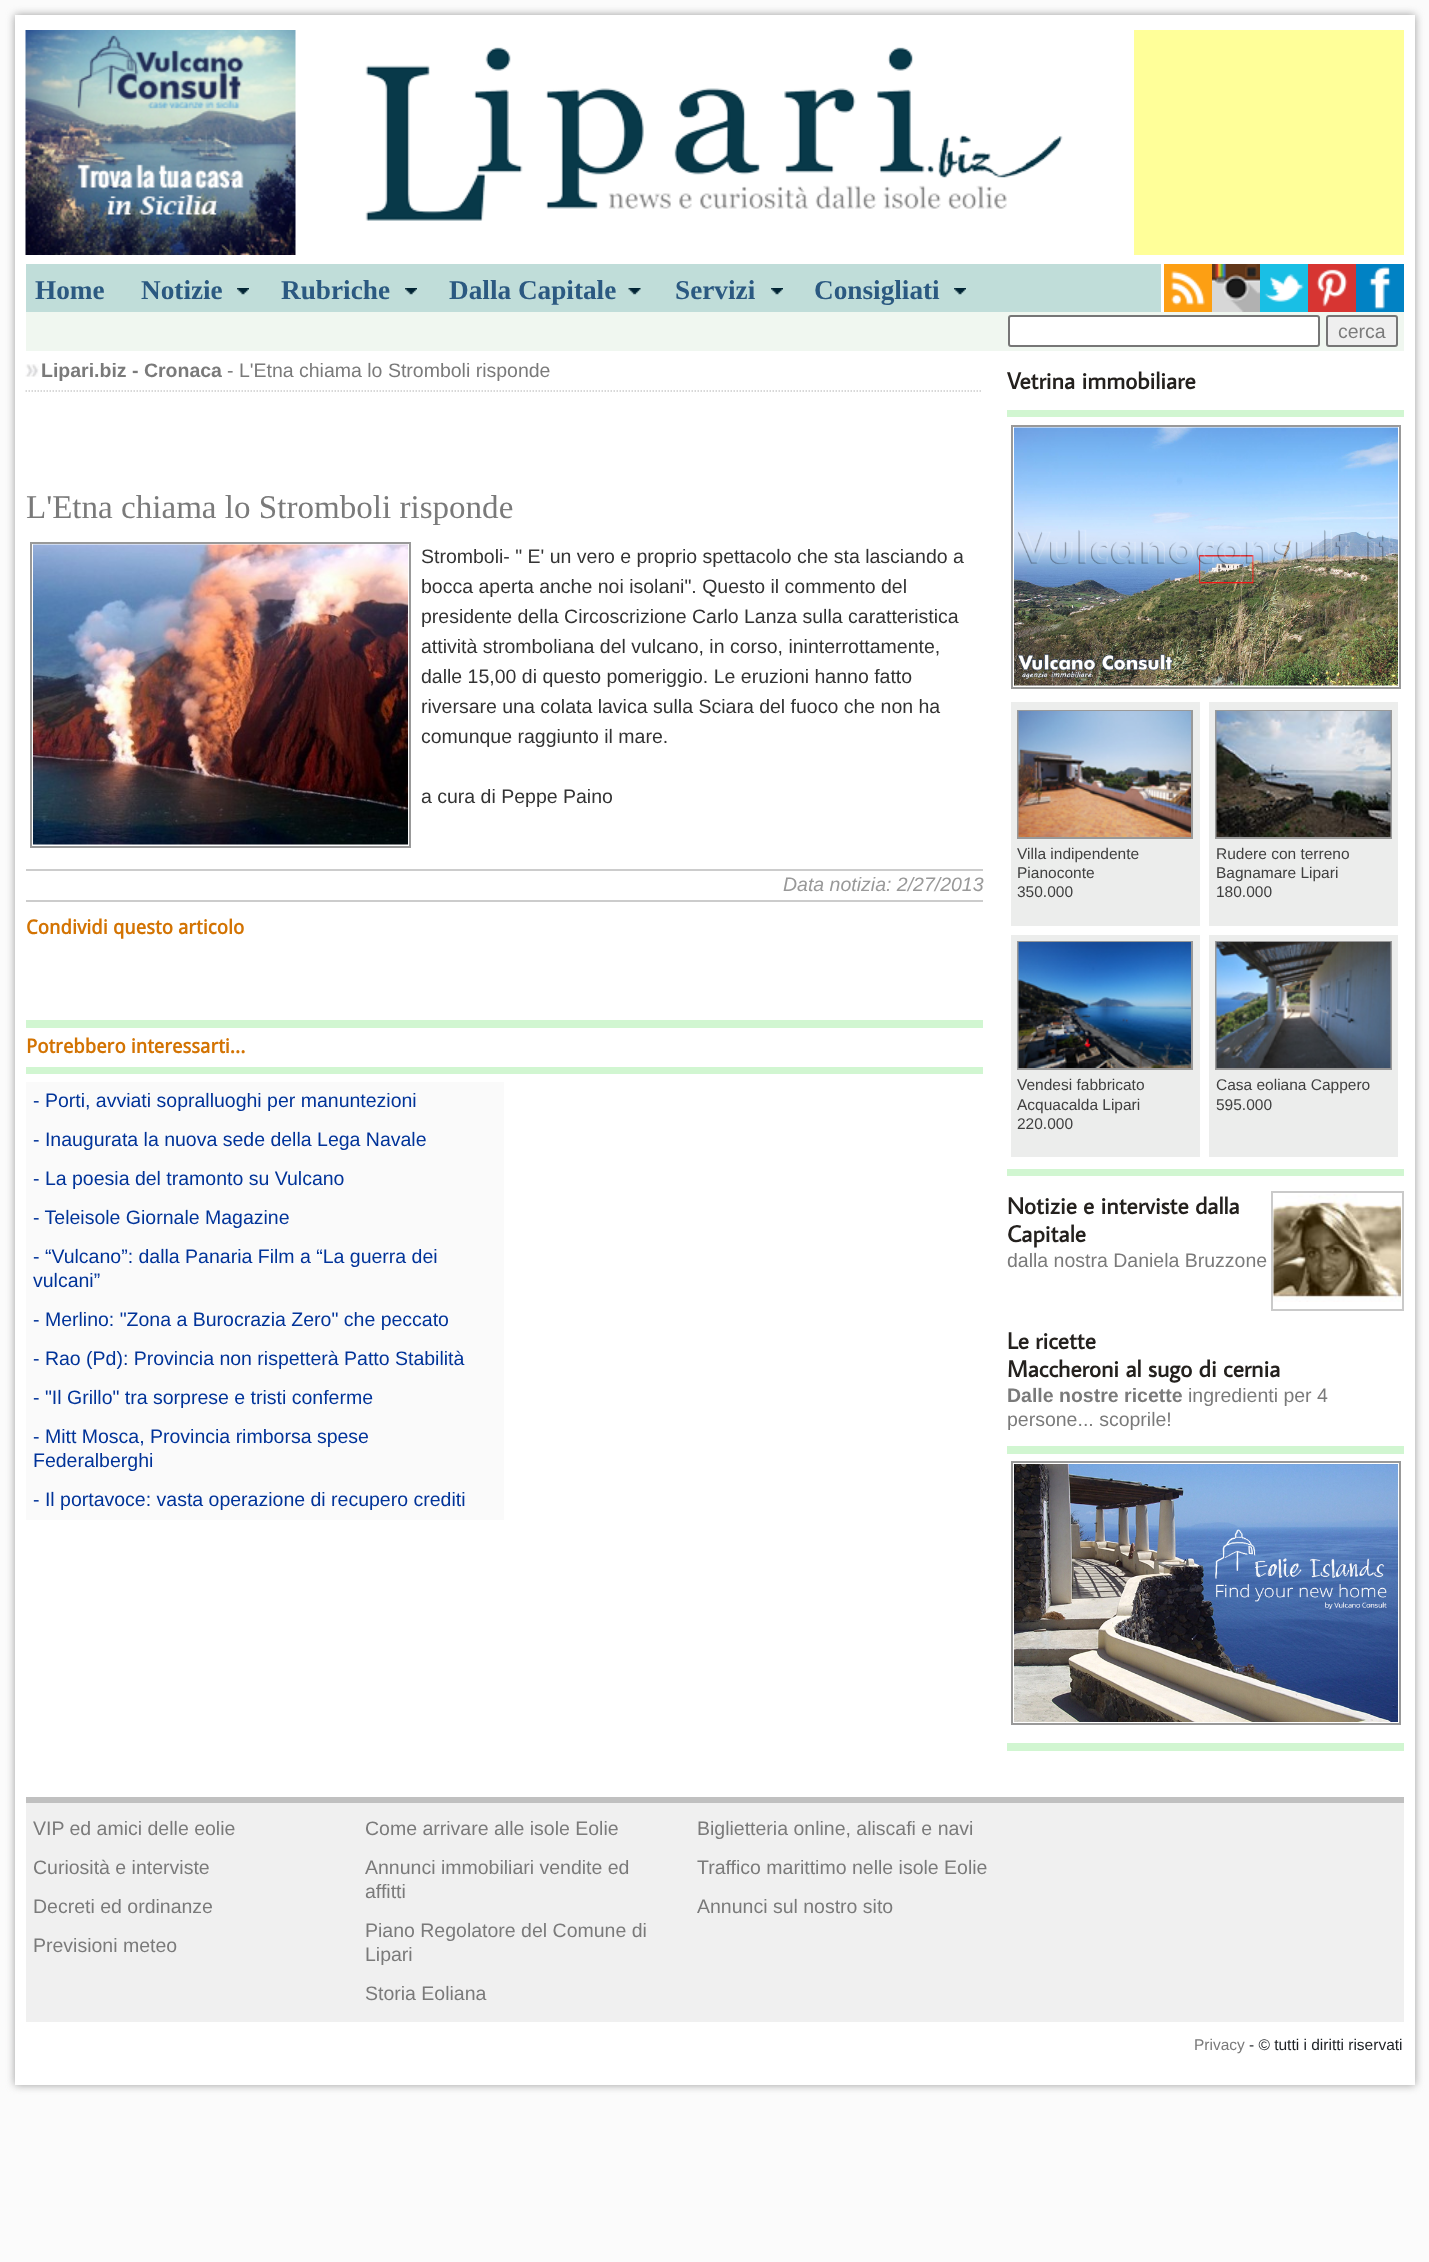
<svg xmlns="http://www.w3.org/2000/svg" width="1429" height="2262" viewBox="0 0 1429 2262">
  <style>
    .t1 { font: bold 27.25px Liberation Serif; fill: #2b5981; }
    .t2 { font: 19.5px Liberation Sans; fill: #7a7a7a; }
    .t3 { font: bold 19.5px Liberation Sans; fill: #7a7a7a; }
    .t4 { font: 33.1px Liberation Serif; fill: #7a7a7a; }
    .t5 { font: 19.5px Liberation Sans; fill: #333; }
    .t6 { font: italic 19.5px Liberation Sans; fill: #999; }
    .t7 { font: bold 19.5px Droid Sans; fill: #d37302; }
    .t8 { font: 19.5px Liberation Sans; fill: #039; }
    .t9 { font: bold 23.4px Average Sans; fill: #24211e; }
    .t10 { font: 15.5px Liberation Sans; fill: #404040; }
    .t11 { font: 15.5px Liberation Sans; fill: #7a7a7a; }
    .t12 { font: 15.5px Liberation Sans; fill: #1c2024; }
  </style>
  <rect width="100%" height="100%" fill="#fbfbfb"/>
  <rect x="15" y="15" width="1400" height="2070" fill="#999" filter="blur(4px)"/>
  <rect x="15" y="15" width="1400" height="2070" fill="#fff"/>
  <image x="25" y="30" width="271" height="225" href="images/1.png"/>
  <image x="365" y="47" width="698" height="174" href="images/2.png"/>
  <rect x="1134" y="30" width="270" height="225" fill="#ff9"/>
  <rect x="26" y="264" width="1135" height="48" fill="#c0ddd9"/>
  <text x="35" y="299" class="t1">Home</text>
  <image x="237" y="288" width="12" height="7" href="images/3.png"/>
  <text x="141" y="299" class="t1">Notizie</text>
  <image x="405" y="288" width="12" height="7" href="images/4.png"/>
  <text x="281" y="299" class="t1">Rubriche</text>
  <image x="628" y="288" width="13" height="7" href="images/5.png"/>
  <text x="449" y="299" class="t1">Dalla Capitale</text>
  <image x="771" y="288" width="12" height="7" href="images/3.png"/>
  <text x="675" y="299" class="t1">Servizi</text>
  <image x="954" y="288" width="12" height="7" href="images/3.png"/>
  <text x="814" y="299" class="t1">Consigliati</text>
  <image x="1164" y="264" width="48" height="48" href="images/6.png"/>
  <image x="1212" y="264" width="48" height="48" href="images/7.png"/>
  <image x="1260" y="264" width="48" height="48" href="images/8.png"/>
  <image x="1308" y="264" width="48" height="48" href="images/9.png"/>
  <image x="1356" y="264" width="48" height="48" href="images/10.png"/>
  <rect x="26" y="312" width="1378" height="39" fill="#f0f7f0"/>
  <rect x="1009" y="316" width="310" height="30" rx="2" fill="#fff" stroke="#767676" stroke-width="2"/>
  <rect x="1327" y="316" width="70" height="30" rx="2" fill="#efefef" stroke="#767676" stroke-width="2"/>
  <text x="1338" y="338" class="t2">cerca</text>
  <image x="25" y="364" width="14" height="13" href="images/11.png"/>
  <path d="M25.5 391H982.5" fill="none" stroke="#ccc" stroke-width="1.5" stroke-dasharray="1.5 1.5"/>
  <text x="41" y="377" class="t3">Lipari.biz - Cronaca</text>
  <text x="227" y="377" class="t2">- L'Etna chiama lo Stromboli risponde</text>
  <text x="26" y="518" class="t4">L'Etna chiama lo Stromboli risponde</text>
  <rect x="31" y="543" width="379" height="304" fill="none" stroke="#999" stroke-width="2"/>
  <image x="33" y="544" width="375" height="301" href="images/12.png"/>
  <text x="421" y="563" class="t5">Stromboli- " E' un vero e proprio spettacolo che sta lasciando a</text>
  <text x="421" y="593" class="t5">bocca aperta anche noi isolani". Questo il commento del</text>
  <text x="421" y="623" class="t5">presidente della Circoscrizione Carlo Lanza sulla caratteristica</text>
  <text x="421" y="653" class="t5">attività stromboliana del vulcano, in corso, ininterrottamente,</text>
  <text x="421" y="683" class="t5">dalle 15,00 di questo pomeriggio. Le eruzioni hanno fatto</text>
  <text x="421" y="713" class="t5">riversare una colata lavica sulla Sciara del fuoco che non ha</text>
  <text x="421" y="743" class="t5">comunque raggiunto il mare.</text>
  <text x="421" y="803" class="t5">a cura di Peppe Paino</text>
  <rect x="26" y="869" width="957" height="2" fill="#ccc"/>
  <rect x="26" y="900" width="957" height="2" fill="#ccc"/>
  <text x="783" y="891" class="t6">Data notizia: 2/27/2013</text>
  <text x="26" y="934" class="t7">Condividi questo articolo</text>
  <rect x="26" y="1020" width="957" height="8" fill="#d1f6d1"/>
  <text x="26" y="1053" class="t7">Potrebbero interessarti...</text>
  <rect x="26" y="1067" width="957" height="7" fill="#d1f6d1"/>
  <rect x="26" y="1082" width="478" height="438" fill="#fafafa"/>
  <text x="33" y="1107" class="t8">- Porti, avviati sopralluoghi per manuntezioni</text>
  <text x="33" y="1146" class="t8">- Inaugurata la nuova sede della Lega Navale</text>
  <text x="33" y="1185" class="t8">- La poesia del tramonto su Vulcano</text>
  <text x="33" y="1224" class="t8">- Teleisole Giornale Magazine</text>
  <text x="33" y="1263" class="t8">- “Vulcano”: dalla Panaria Film a “La guerra dei</text>
  <text x="33" y="1287" class="t8">vulcani”</text>
  <text x="33" y="1326" class="t8">- Merlino: "Zona a Burocrazia Zero" che peccato</text>
  <text x="33" y="1365" class="t8">- Rao (Pd): Provincia non rispetterà Patto Stabilità</text>
  <text x="33" y="1404" class="t8">- "Il Grillo" tra sorprese e tristi conferme</text>
  <text x="33" y="1443" class="t8">- Mitt Mosca, Provincia rimborsa spese</text>
  <text x="33" y="1467" class="t8">Federalberghi</text>
  <text x="33" y="1506" class="t8">- Il portavoce: vasta operazione di recupero crediti</text>
  <text x="1007" y="389" class="t9">Vetrina immobiliare</text>
  <rect x="1007" y="410" width="397" height="7" fill="#d1f6d1"/>
  <rect x="1012" y="426" width="388" height="262" fill="none" stroke="#999" stroke-width="2"/>
  <image x="1014" y="427" width="384" height="259" href="images/13.png"/>
  <rect x="1011" y="702" width="189" height="224" fill="#ecedec"/>
  <rect x="1018" y="711" width="174" height="127" fill="none" stroke="#999" stroke-width="2"/>
  <image x="1018" y="711" width="173" height="126" href="images/14.png"/>
  <text x="1017" y="859" class="t10">Villa indipendente</text>
  <text x="1017" y="878" class="t10">Pianoconte</text>
  <text x="1017" y="897" class="t10">350.000</text>
  <rect x="1209" y="702" width="189" height="224" fill="#ecedec"/>
  <rect x="1216" y="711" width="175" height="127" fill="none" stroke="#999" stroke-width="2"/>
  <image x="1216" y="711" width="175" height="126" href="images/15.png"/>
  <text x="1216" y="859" class="t10">Rudere con terreno</text>
  <text x="1216" y="878" class="t10">Bagnamare Lipari</text>
  <text x="1216" y="897" class="t10">180.000</text>
  <rect x="1011" y="935" width="189" height="222" fill="#ecedec"/>
  <rect x="1018" y="942" width="174" height="127" fill="none" stroke="#999" stroke-width="2"/>
  <image x="1018" y="942" width="173" height="126" href="images/16.png"/>
  <text x="1017" y="1090" class="t10">Vendesi fabbricato</text>
  <text x="1017" y="1110" class="t10">Acquacalda Lipari</text>
  <text x="1017" y="1129" class="t10">220.000</text>
  <rect x="1209" y="935" width="189" height="222" fill="#ecedec"/>
  <rect x="1216" y="942" width="175" height="127" fill="none" stroke="#999" stroke-width="2"/>
  <image x="1216" y="942" width="175" height="126" href="images/17.png"/>
  <text x="1216" y="1090" class="t10">Casa eoliana Cappero</text>
  <text x="1216" y="1110" class="t10">595.000</text>
  <rect x="1007" y="1169" width="397" height="7" fill="#d1f6d1"/>
  <text x="1007" y="1214" class="t9">Notizie e interviste dalla</text>
  <text x="1007" y="1242" class="t9">Capitale</text>
  <rect x="1272" y="1192" width="131" height="118" fill="none" stroke="#cacaca" stroke-width="2"/>
  <image x="1273" y="1194" width="128" height="108" href="images/18.png"/>
  <text x="1007" y="1267" class="t2">dalla nostra Daniela Bruzzone</text>
  <text x="1007" y="1349" class="t9">Le ricette</text>
  <text x="1007" y="1377" class="t9">Maccheroni al sugo di cernia</text>
  <text x="1007" y="1402" class="t3">Dalle nostre ricette</text>
  <text x="1188" y="1402" class="t2">ingredienti per 4</text>
  <text x="1007" y="1426" class="t2">persone... scoprile!</text>
  <rect x="1007" y="1446" width="397" height="8" fill="#d1f6d1"/>
  <rect x="1012" y="1462" width="388" height="262" fill="none" stroke="#999" stroke-width="2"/>
  <image x="1014" y="1464" width="384" height="258" href="images/19.png"/>
  <rect x="1007" y="1743" width="397" height="8" fill="#d1f6d1"/>
  <rect x="26" y="1803" width="1378" height="219" fill="#f0f0f0"/>
  <rect x="26" y="1797" width="1378" height="6" fill="#c0c0c0"/>
  <text x="33" y="1835" class="t2">VIP ed amici delle eolie</text>
  <text x="33" y="1874" class="t2">Curiosità e interviste</text>
  <text x="33" y="1913" class="t2">Decreti ed ordinanze</text>
  <text x="33" y="1952" class="t2">Previsioni meteo</text>
  <text x="365" y="1835" class="t2">Come arrivare alle isole Eolie</text>
  <text x="365" y="1874" class="t2">Annunci immobiliari vendite ed</text>
  <text x="365" y="1898" class="t2">affitti</text>
  <text x="365" y="1937" class="t2">Piano Regolatore del Comune di</text>
  <text x="365" y="1961" class="t2">Lipari</text>
  <text x="365" y="2000" class="t2">Storia Eoliana</text>
  <text x="697" y="1835" class="t2">Biglietteria online, aliscafi e navi</text>
  <text x="697" y="1874" class="t2">Traffico marittimo nelle isole Eolie</text>
  <text x="697" y="1913" class="t2">Annunci sul nostro sito</text>
  <text x="1194" y="2050" class="t11">Privacy</text>
  <text x="1249" y="2050" class="t12">- © tutti i diritti riservati</text>
</svg>
